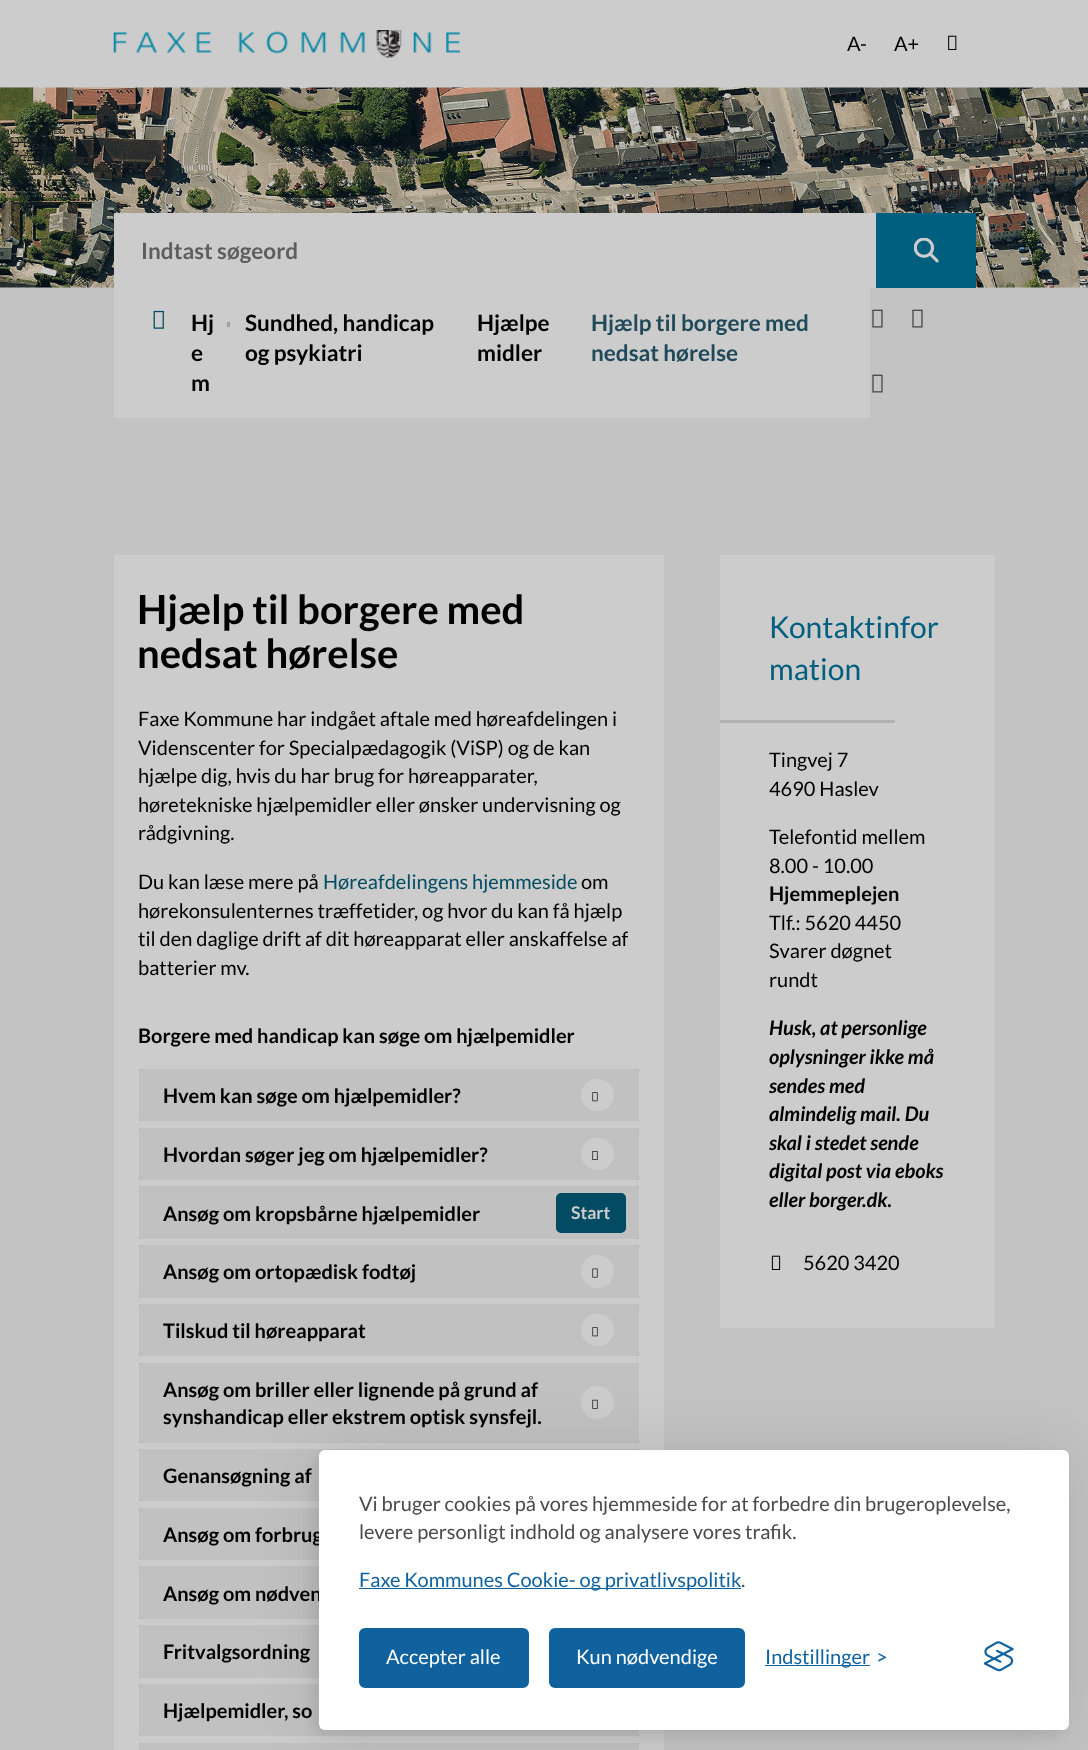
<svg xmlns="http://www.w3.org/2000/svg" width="1088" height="1750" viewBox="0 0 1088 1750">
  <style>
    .t1 { font: 20px Lato; fill: #000; }
    .t2 { font: bold 22.5px Lato; fill: #5e5e5e; }
    .t3 { font: bold 22.5px Lato; fill: #000; }
    .t4 { font: bold 22.5px Lato; fill: #204a59; }
    .t5 { font: bold 40px Lato; fill: #000; }
    .t6 { font: 20px Lato; fill: #024b62; }
    .t7 { font: bold 20px Lato; fill: #000; }
    .t8 { font: bold 17.5px Lato; fill: #ccc; }
    .t9 { font: 30px Lato; fill: #005f7e; }
    .t10 { font: italic bold 20px Lato; fill: #000; }
    .t11 { font: 20px Lato; fill: #4b494b; }
    .t12 { font: 20px Lato; fill: #10629e; }
    .t13 { font: 20px Lato; fill: #fff; }
  </style>
  <rect width="100%" height="100%" fill="#c3c3c3"/>
  <rect x="0" y="0" width="1088" height="88" fill="#ccc"/>
  <image x="113" y="30" width="347" height="28" href="images/1.png"/>
  <text x="847" y="51" class="t1">A-</text>
  <text x="894" y="51" class="t1">A+</text>
  <image x="948" y="35" width="9" height="15" href="images/2.png"/>
  <image x="0" y="87" width="1088" height="201" href="images/3.png"/>
  <rect x="114" y="213" width="762" height="75" fill="#ccc"/>
  <text x="141" y="259" class="t2">Indtast søgeord</text>
  <rect x="876" y="213" width="100" height="75" fill="#005f7e"/>
  <image x="914" y="238" width="25" height="25" href="images/4.png"/>
  <rect x="114" y="288" width="756" height="130" fill="#ccc"/>
  <image x="153" y="310" width="11" height="19" href="images/5.png"/>
  <text x="191" y="331" class="t3">Hj</text>
  <text x="191" y="361" class="t3">e</text>
  <text x="191" y="391" class="t3">m</text>
  <rect x="227" y="322" width="3" height="5" fill="#a1a1a1"/>
  <text x="245" y="331" class="t3">Sundhed, handicap</text>
  <text x="245" y="361" class="t3">og psykiatri</text>
  <text x="477" y="331" class="t3">Hjælpe</text>
  <text x="477" y="361" class="t3">midler</text>
  <text x="591" y="331" class="t4">Hjælp til borgere med</text>
  <text x="591" y="361" class="t4">nedsat hørelse</text>
  <image x="872" y="309" width="11" height="19" href="images/6.png"/>
  <image x="912" y="309" width="11" height="19" href="images/6.png"/>
  <image x="872" y="374" width="11" height="19" href="images/6.png"/>
  <rect x="114" y="555" width="550" height="1195" fill="#ccc"/>
  <text x="137" y="624" class="t5">Hjælp til borgere med</text>
  <text x="137" y="668" class="t5">nedsat hørelse</text>
  <text x="138" y="726" class="t1">Faxe Kommune har indgået aftale med høreafdelingen i</text>
  <text x="138" y="755" class="t1">Videnscenter for Specialpædagogik (ViSP) og de kan</text>
  <text x="138" y="783" class="t1">hjælpe dig, hvis du har brug for høreapparater,</text>
  <text x="138" y="812" class="t1">høretekniske hjælpemidler eller ønsker undervisning og</text>
  <text x="138" y="840" class="t1">rådgivning.</text>
  <text x="138" y="889" class="t1">Du kan læse mere på</text>
  <text x="323" y="889" class="t6">Høreafdelingens hjemmeside</text>
  <text x="581" y="889" class="t1">om</text>
  <text x="138" y="918" class="t1">hørekonsulenternes træffetider, og hvor du kan få hjælp</text>
  <text x="138" y="946" class="t1">til den daglige drift af dit høreapparat eller anskaffelse af</text>
  <text x="138" y="975" class="t1">batterier mv.</text>
  <text x="138" y="1043" class="t7">Borgere med handicap kan søge om hjælpemidler</text>
  <rect x="139" y="1069" width="500" height="52" fill="#b6b6b6"/>
  <rect x="139" y="1069" width="500" height="52" rx="4" fill="#c1c1c1"/>
  <text x="163" y="1103" class="t7">Hvem kan søge om hjælpemidler?</text>
  <rect x="581" y="1079" width="33" height="32" rx="16" fill="#ccc"/>
  <image x="592" y="1092" width="6" height="10" href="images/7.png"/>
  <rect x="139" y="1128" width="500" height="52" fill="#b6b6b6"/>
  <rect x="139" y="1128" width="500" height="52" rx="4" fill="#c1c1c1"/>
  <text x="163" y="1162" class="t7">Hvordan søger jeg om hjælpemidler?</text>
  <rect x="581" y="1138" width="33" height="32" rx="16" fill="#ccc"/>
  <image x="592" y="1151" width="6" height="9" href="images/8.png"/>
  <rect x="139" y="1186" width="500" height="53" fill="#b6b6b6"/>
  <rect x="139" y="1186" width="500" height="53" rx="4" fill="#c1c1c1"/>
  <text x="163" y="1221" class="t7">Ansøg om kropsbårne hjælpemidler</text>
  <rect x="557.5" y="1194.5" width="67" height="37" rx="3.5" fill="#024b62" stroke="#024b62" stroke-width="3"/>
  <text x="571" y="1219" class="t8">Start</text>
  <rect x="139" y="1245" width="500" height="53" fill="#b6b6b6"/>
  <rect x="139" y="1245" width="500" height="53" rx="4" fill="#c1c1c1"/>
  <text x="163" y="1279" class="t7">Ansøg om ortopædisk fodtøj</text>
  <circle cx="597.5" cy="1271.5" r="16.5" fill="#ccc"/>
  <image x="592" y="1268" width="6" height="10" href="images/9.png"/>
  <rect x="139" y="1304" width="500" height="52" fill="#b6b6b6"/>
  <rect x="139" y="1304" width="500" height="52" rx="4" fill="#c1c1c1"/>
  <text x="163" y="1338" class="t7">Tilskud til høreapparat</text>
  <rect x="581" y="1314" width="33" height="32" rx="16" fill="#ccc"/>
  <image x="592" y="1327" width="6" height="10" href="images/7.png"/>
  <rect x="139" y="1363" width="500" height="80" fill="#b6b6b6"/>
  <rect x="139" y="1363" width="500" height="80" rx="4" fill="#c1c1c1"/>
  <text x="163" y="1397" class="t7">Ansøg om briller eller lignende på grund af</text>
  <text x="163" y="1424" class="t7">synshandicap eller ekstrem optisk synsfejl.</text>
  <circle cx="597.5" cy="1402.5" r="16.5" fill="#ccc"/>
  <image x="592" y="1399" width="6" height="10" href="images/10.png"/>
  <rect x="139" y="1449" width="500" height="52" fill="#b6b6b6"/>
  <rect x="139" y="1449" width="500" height="52" rx="4" fill="#c1c1c1"/>
  <text x="163" y="1483" class="t7">Genansøgning af</text>
  <rect x="139" y="1508" width="4" height="52" fill="#b6b6b6"/>
  <rect x="139" y="1508" width="500" height="52" rx="4" fill="#c1c1c1"/>
  <text x="163" y="1542" class="t7">Ansøg om forbrug</text>
  <rect x="139" y="1566" width="4" height="53" fill="#b6b6b6"/>
  <rect x="139" y="1566" width="500" height="53" rx="4" fill="#c1c1c1"/>
  <text x="163" y="1601" class="t7">Ansøg om nødven</text>
  <rect x="139" y="1625" width="4" height="53" fill="#b6b6b6"/>
  <rect x="139" y="1625" width="500" height="53" rx="4" fill="#c1c1c1"/>
  <text x="163" y="1659" class="t7">Fritvalgsordning</text>
  <rect x="139" y="1684" width="500" height="52" fill="#b6b6b6"/>
  <rect x="139" y="1684" width="500" height="52" rx="4" fill="#c1c1c1"/>
  <text x="163" y="1718" class="t7">Hjælpemidler, so</text>
  <rect x="139" y="1743" width="500" height="4" fill="#b6b6b6"/>
  <rect x="139" y="1743" width="500" height="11" rx="4" fill="#c1c1c1"/>
  <rect x="720" y="555" width="275" height="773" fill="#ccc"/>
  <text x="769" y="638" class="t9">Kontaktinfor</text>
  <text x="769" y="680" class="t9">mation</text>
  <rect x="720" y="720" width="175" height="3" fill="#b5b1af"/>
  <text x="769" y="767" class="t1">Tingvej 7</text>
  <text x="769" y="796" class="t1">4690 Haslev</text>
  <text x="769" y="844" class="t1">Telefontid mellem</text>
  <text x="769" y="873" class="t1">8.00 - 10.00</text>
  <text x="769" y="901" class="t7">Hjemmeplejen</text>
  <text x="769" y="930" class="t1">Tlf.: 5620 4450</text>
  <text x="769" y="958" class="t1">Svarer døgnet</text>
  <text x="769" y="987" class="t1">rundt</text>
  <text x="769" y="1035" class="t10">Husk, at personlige</text>
  <text x="769" y="1064" class="t10">oplysninger ikke må</text>
  <text x="769" y="1093" class="t10">sendes med</text>
  <text x="769" y="1121" class="t10">almindelig mail. Du</text>
  <text x="769" y="1150" class="t10">skal i stedet sende</text>
  <text x="769" y="1178" class="t10">digital post via eboks</text>
  <text x="769" y="1207" class="t10">eller borger.dk.</text>
  <image x="771" y="1255" width="10" height="15" href="images/11.png"/>
  <text x="803" y="1270" class="t1">5620 3420</text>
  <rect x="319" y="1450" width="750" height="280" rx="6" fill="#0000001a" filter="blur(31px)"/>
  <rect x="313" y="1456" width="750" height="280" rx="6" fill="#00000012" filter="blur(6px)"/>
  <rect x="319" y="1450" width="750" height="280" rx="6" fill="#fff"/>
  <text x="359" y="1511" class="t11">Vi bruger cookies på vores hjemmeside for at forbedre din brugeroplevelse,</text>
  <text x="359" y="1539" class="t11">levere personligt indhold og analysere vores trafik.</text>
  <rect x="359" y="1588" width="382" height="1" fill="#10629e"/>
  <text x="359" y="1587" class="t12">Faxe Kommunes Cookie- og privatlivspolitik</text>
  <text x="741" y="1587" class="t11">.</text>
  <rect x="360.5" y="1629.5" width="167" height="57" rx="4.5" fill="#10629e" stroke="#10629e" stroke-width="3"/>
  <text x="386" y="1664" class="t13">Accepter alle</text>
  <rect x="550.5" y="1629.5" width="193" height="57" rx="4.5" fill="#10629e" stroke="#10629e" stroke-width="3"/>
  <text x="576" y="1664" class="t13">Kun nødvendige</text>
  <rect x="765" y="1665" width="105" height="1" fill="#10629e"/>
  <text x="765" y="1664" class="t12">Indstillinger</text>
  <text x="876" y="1664" class="t12">&gt;</text>
  <image x="984" y="1641" width="30" height="31" href="images/12.png"/>
</svg>
